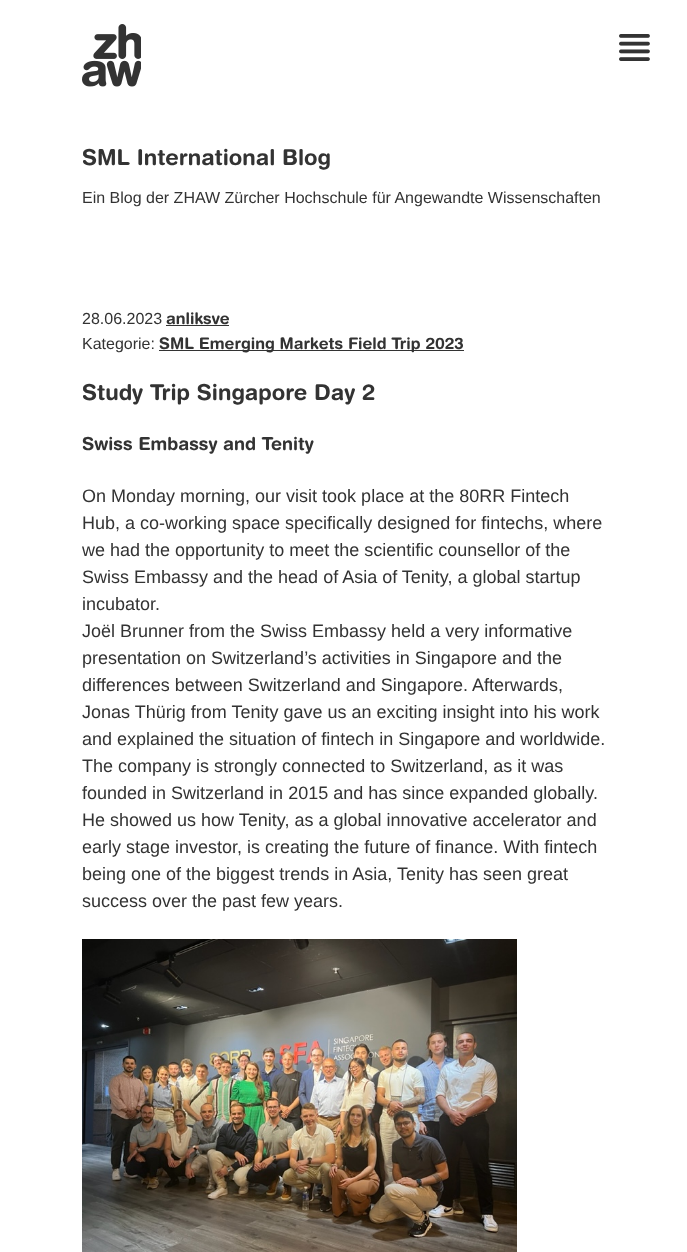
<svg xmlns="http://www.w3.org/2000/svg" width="687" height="1252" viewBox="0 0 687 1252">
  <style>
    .t1 { font: 22px 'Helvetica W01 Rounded'; fill: #333; }
    .t2 { font: 16px Liberation Sans; fill: #333; }
    .t3 { font: 16px 'Helvetica W01 Rounded'; fill: #333; }
    .t4 { font: 18px 'Helvetica W01 Rounded'; fill: #333; }
    .t5 { font: 18px Liberation Sans; fill: #333; }
  </style>
  <rect width="100%" height="100%" fill="#fff"/>
  <image x="619" y="34" width="31" height="27" href="images/1.png"/>
  <image x="82" y="24" width="59" height="63" href="images/2.png"/>
  <text x="82" y="165" class="t1">SML International Blog</text>
  <text x="82" y="203" class="t2">Ein Blog der ZHAW Zürcher Hochschule für Angewandte Wissenschaften</text>
  <text x="82" y="324" class="t2">28.06.2023</text>
  <text x="166" y="324" class="t3">anliksve</text>
  <rect x="166" y="325" width="63" height="1" fill="#333"/>
  <text x="82" y="349" class="t2">Kategorie:</text>
  <rect x="159" y="350" width="305" height="1" fill="#333"/>
  <text x="159" y="349" class="t3">SML Emerging Markets Field Trip 2023</text>
  <text x="82" y="400" class="t1">Study Trip Singapore Day 2</text>
  <text x="82" y="450" class="t4">Swiss Embassy and Tenity</text>
  <text x="82" y="502" class="t5">On Monday morning, our visit took place at the 80RR Fintech</text>
  <text x="82" y="529" class="t5">Hub, a co-working space specifically designed for fintechs, where</text>
  <text x="82" y="556" class="t5">we had the opportunity to meet the scientific counsellor of the</text>
  <text x="82" y="583" class="t5">Swiss Embassy and the head of Asia of Tenity, a global startup</text>
  <text x="82" y="610" class="t5">incubator.</text>
  <text x="82" y="637" class="t5">Joël Brunner from the Swiss Embassy held a very informative</text>
  <text x="82" y="664" class="t5">presentation on Switzerland’s activities in Singapore and the</text>
  <text x="82" y="691" class="t5">differences between Switzerland and Singapore. Afterwards,</text>
  <text x="82" y="718" class="t5">Jonas Thürig from Tenity gave us an exciting insight into his work</text>
  <text x="82" y="745" class="t5">and explained the situation of fintech in Singapore and worldwide.</text>
  <text x="82" y="772" class="t5">The company is strongly connected to Switzerland, as it was</text>
  <text x="82" y="799" class="t5">founded in Switzerland in 2015 and has since expanded globally.</text>
  <text x="82" y="826" class="t5">He showed us how Tenity, as a global innovative accelerator and</text>
  <text x="82" y="853" class="t5">early stage investor, is creating the future of finance. With fintech</text>
  <text x="82" y="880" class="t5">being one of the biggest trends in Asia, Tenity has seen great</text>
  <text x="82" y="907" class="t5">success over the past few years.</text>
  <image x="82" y="939" width="435" height="313" href="images/3.png"/>
</svg>
